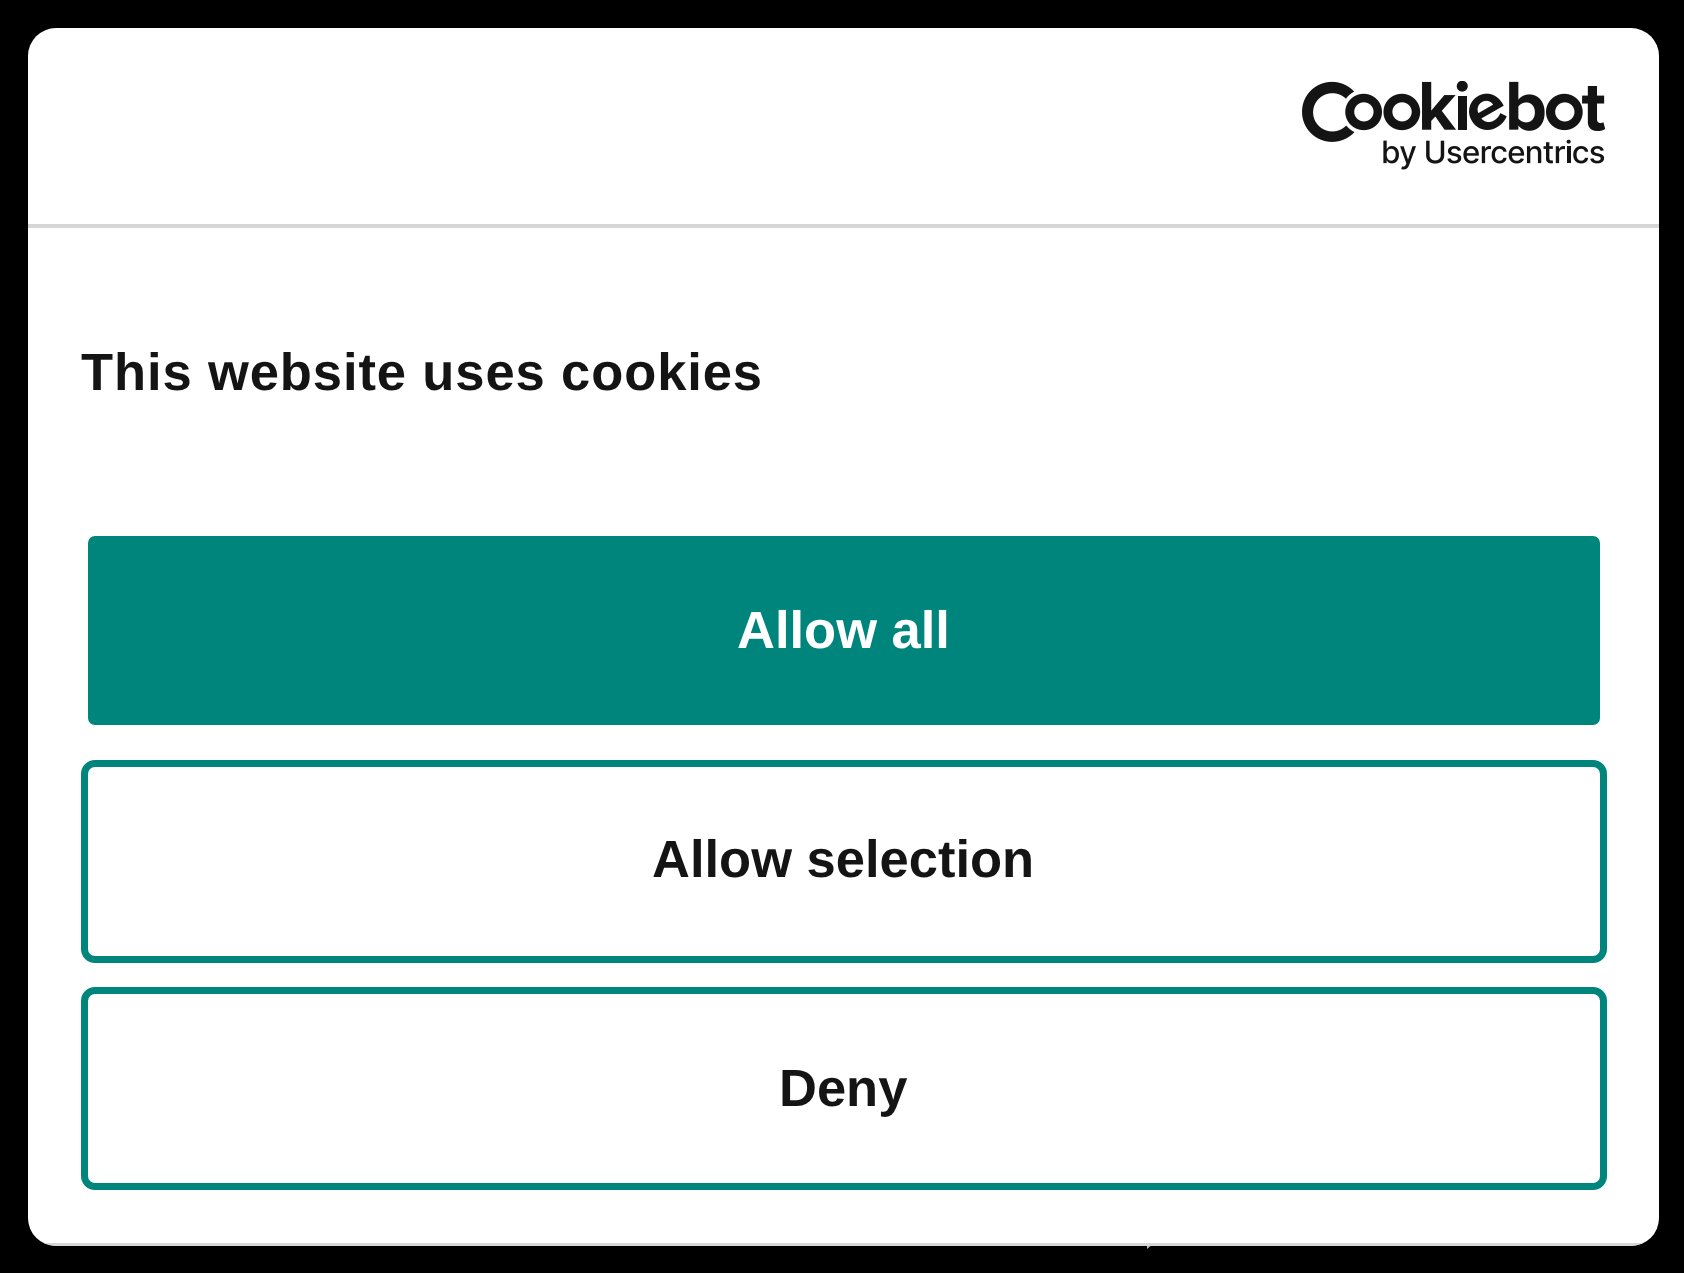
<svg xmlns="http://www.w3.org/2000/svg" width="1684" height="1273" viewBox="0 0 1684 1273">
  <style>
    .t1 { font: bold 52.5px Liberation Sans; letter-spacing: 0.9px; fill: #141414; }
    .t2 { font: bold 52.5px Liberation Sans; fill: #fff; }
    .t3 { font: bold 52.5px Liberation Sans; fill: #141414; }
  </style>
  <defs>
    <clipPath id="clip1"><rect x="28" y="28" width="1631" height="1218" rx="28"/></clipPath>
  </defs>
  <rect width="100%" height="100%" fill="#000"/>
  <path d="M1159.5 1238L1147 1249V1240.5H1128V1236H1147V1227Z" fill="#fff"/>
  <rect x="28" y="140" width="1631" height="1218" rx="28" fill="#0000004d" filter="blur(119px)"/>
  <rect x="28" y="28" width="1631" height="1218" rx="28" fill="#fff"/>
  <rect x="28" y="224" width="1631" height="4" fill="#d6d6d6"/>
  <image x="1302" y="81" width="304" height="89" href="images/1.png"/>
  <text x="81" y="390" class="t1">This website uses cookies</text>
  <g clip-path="url(#clip1)">
    <rect x="43" y="1243" width="1601" height="3" fill="#d6d6d6"/>
  </g>
  <rect x="84.5" y="532.5" width="1519" height="196" rx="10.5" fill="#00857d" stroke="#fff" stroke-width="7"/>
  <text x="737" y="648" class="t2">Allow all</text>
  <rect x="84.5" y="763.5" width="1519" height="196" rx="10.5" fill="none" stroke="#00857d" stroke-width="7"/>
  <text x="652" y="877" class="t3">Allow selection</text>
  <rect x="84.5" y="990.5" width="1519" height="196" rx="10.5" fill="none" stroke="#00857d" stroke-width="7"/>
  <text x="779" y="1106" class="t3">Deny</text>
</svg>
